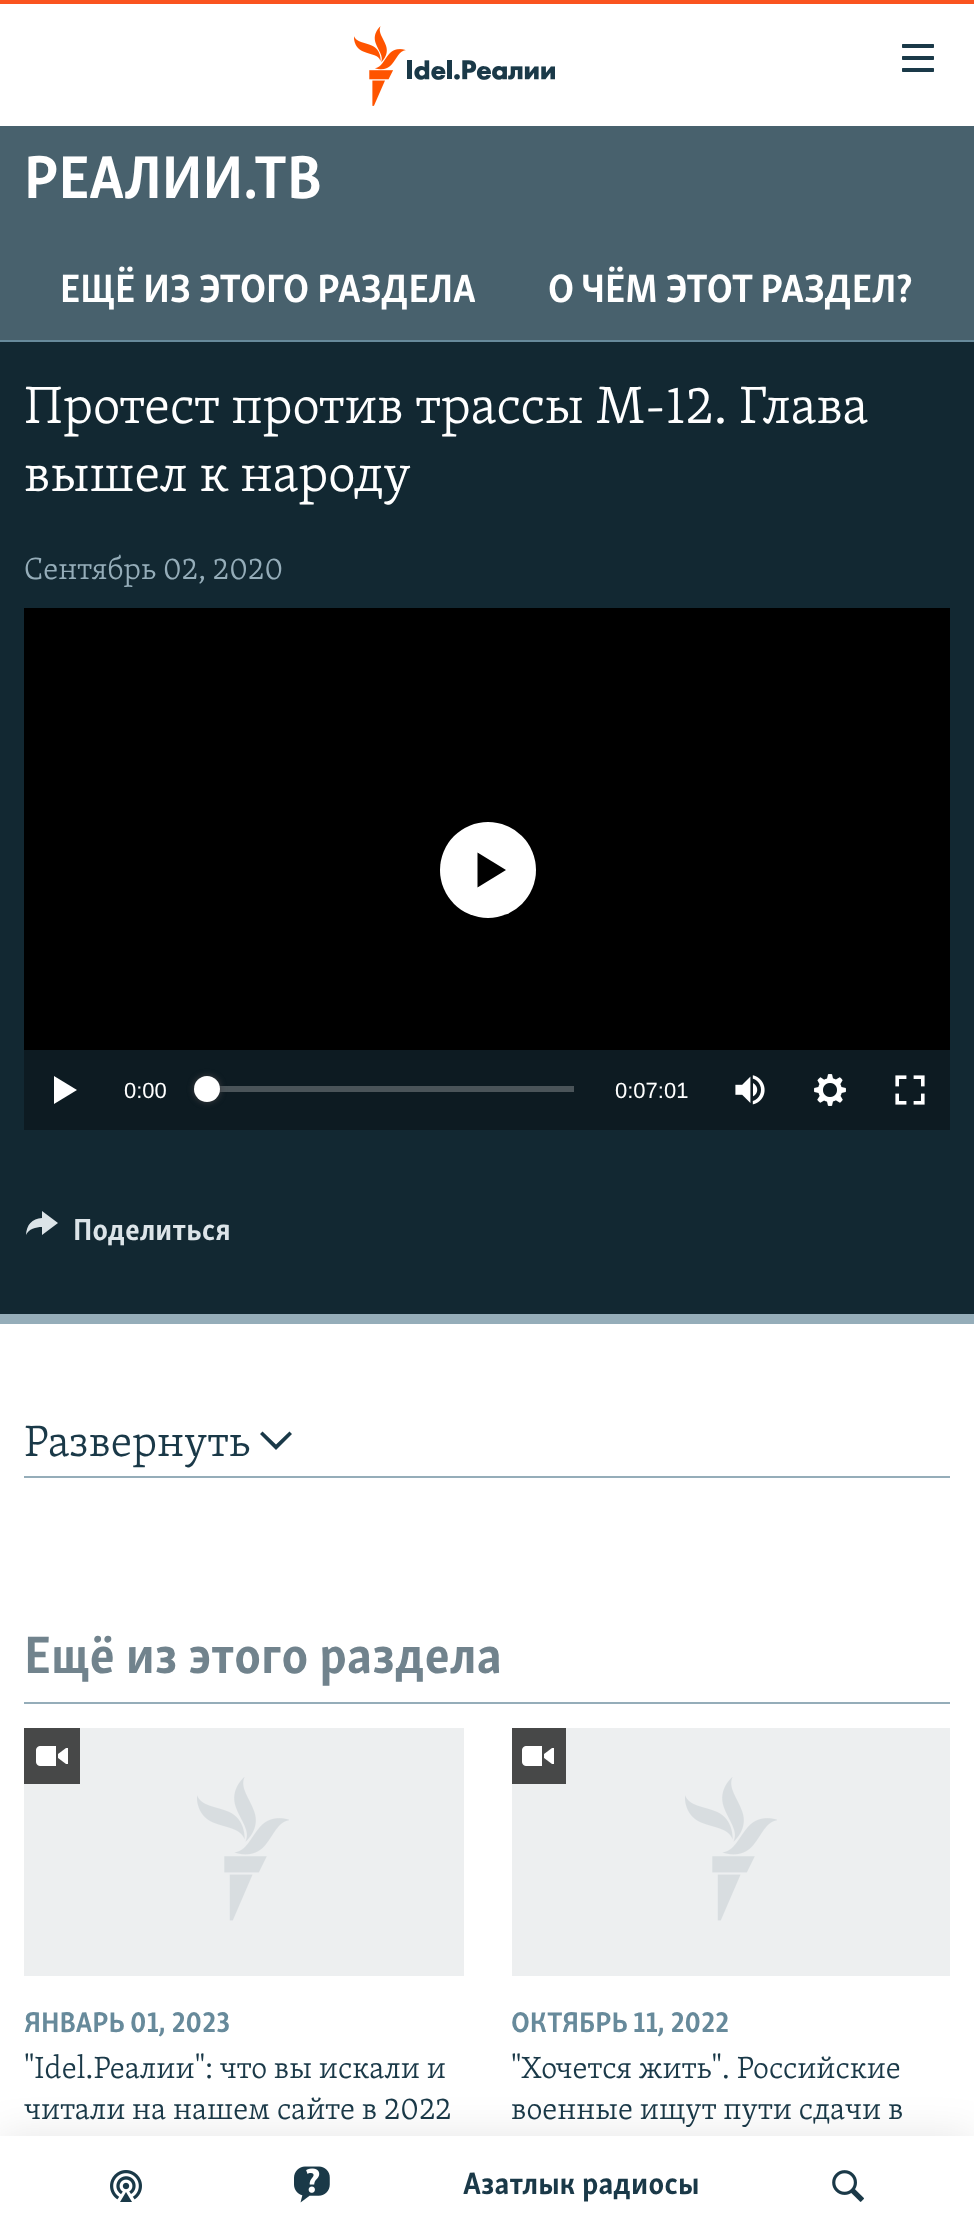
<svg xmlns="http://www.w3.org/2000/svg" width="974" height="2236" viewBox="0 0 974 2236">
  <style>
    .t1 { font: bold 62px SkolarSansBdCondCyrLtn; fill: #fff; }
    .t2 { font: bold 40.5px SkolarSansBdCondCyrLtn; fill: #fff; }
    .t3 { font: 300 54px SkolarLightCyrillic; fill: #fff; }
    .t4 { font: 300 31.5px SkolarLightCyrillic; fill: #95adb9; }
    .t5 { font: 22px Liberation Sans; fill: #fff; }
    .t6 { font: bold 31.5px SkolarSansBdCondCyrLtn; fill: #dce4e8; }
    .t7 { font: 300 45px SkolarLightCyrillic; fill: #1a3948; }
    .t8 { font: bold 54px SkolarSansBdCondCyrLtn; fill: #71838d; }
    .t9 { font: bold 29.25px SkolarSansBdCondCyrLtn; fill: #678a9b; }
    .t10 { font: 300 31.5px SkolarLightCyrillic; fill: #1a3948; }
    .t11 { font: bold 32px SkolarSansBdCondCyrLtn; fill: #1a3948; }
  </style>
  <rect width="100%" height="100%" fill="#fff"/>
  <rect x="0" y="126" width="974" height="214" fill="#48616d"/>
  <text x="24" y="198" class="t1">РЕАЛИИ.ТВ</text>
  <text x="60" y="302" class="t2">ЕЩЁ ИЗ ЭТОГО РАЗДЕЛА</text>
  <text x="548" y="302" class="t2">О ЧЁМ ЭТОТ РАЗДЕЛ?</text>
  <rect x="0" y="342" width="974" height="972" fill="#122832"/>
  <rect x="0" y="340" width="974" height="2" fill="#678a9b"/>
  <rect x="0" y="1314" width="974" height="10" fill="#95adb9"/>
  <text x="24" y="423" class="t3">Протест против трассы М-12. Глава</text>
  <text x="24" y="491" class="t3">вышел к народу</text>
  <text x="24" y="579" class="t4">Сентябрь 02, 2020</text>
  <rect x="24" y="608" width="926" height="442" fill="#000"/>
  <circle cx="488" cy="870" r="48" fill="#fff"/>
  <path d="M477.5 887.5L506 870L477.5 852.5Z" fill="#000"/>
  <rect x="24" y="1050" width="926" height="80" fill="#0d1b22"/>
  <path d="M54 1104L77 1090L54 1076Z" fill="#fff"/>
  <text x="124" y="1098" class="t5">0:00</text>
  <rect x="219" y="1086" width="355" height="6" fill="#4a5459"/>
  <rect x="194" y="1076" width="26" height="26" rx="13" fill="#414144" filter="blur(3px)"/>
  <circle cx="207" cy="1089" r="13" fill="#fff"/>
  <text x="615" y="1098" class="t5">0:07:01</text>
  <image x="735" y="1075" width="30" height="30" href="images/1.png"/>
  <image x="814" y="1074" width="32" height="32" href="images/2.png"/>
  <image x="895" y="1075" width="30" height="30" href="images/3.png"/>
  <path d="M26 1235C26.5 1225 32 1218.5 42 1218V1211L58 1223L42 1235V1227C36 1227 28.5 1229 26 1235Z" fill="#dce4e8"/>
  <text x="73" y="1240" class="t6">Поделиться</text>
  <rect x="24" y="1476" width="926" height="2" fill="#95adb9"/>
  <text x="24" y="1456" class="t7">Развернуть</text>
  <path d="M260 1434L276 1450L292 1434L289.5 1431.5L276 1444.5L262.5 1431.5Z" fill="#1a3948"/>
  <rect x="24" y="1702" width="926" height="2" fill="#95adb9"/>
  <text x="24" y="1673" class="t8">Ещё из этого раздела</text>
  <rect x="24" y="1728" width="440" height="248" fill="#edeff0"/>
  <image x="197" y="1777" width="92" height="144" href="images/4.png"/>
  <rect x="24" y="1728" width="56" height="56" fill="#474848"/>
  <image x="36" y="1746" width="32" height="20" href="images/5.png"/>
  <text x="24" y="2032" class="t9">ЯНВАРЬ 01, 2023</text>
  <text x="24" y="2078" class="t10">"Idel.Реалии": что вы искали и</text>
  <text x="24" y="2119" class="t10">читали на нашем сайте в 2022</text>
  <rect x="512" y="1728" width="438" height="248" fill="#edeff0"/>
  <image x="685" y="1777" width="92" height="144" href="images/4.png"/>
  <rect x="512" y="1728" width="54" height="56" fill="#474848"/>
  <image x="522" y="1746" width="32" height="20" href="images/5.png"/>
  <text x="511" y="2032" class="t9">ОКТЯБРЬ 11, 2022</text>
  <text x="511" y="2078" class="t10">"Хочется жить". Российские</text>
  <text x="511" y="2119" class="t10">военные ищут пути сдачи в</text>
  <rect x="0" y="0" width="974" height="4" fill="#fa5420"/>
  <image x="354" y="26" width="201" height="80" href="images/6.png"/>
  <image x="902" y="44" width="32" height="28" href="images/7.png"/>
  <rect x="0" y="2136" width="974" height="100" fill="#0000001a" filter="blur(20px)"/>
  <rect x="0" y="2136" width="974" height="100" fill="#fff"/>
  <image x="110" y="2170" width="32" height="32" href="images/8.png"/>
  <image x="294" y="2166" width="36" height="37" href="images/9.png"/>
  <text x="463" y="2194" class="t11">Aзатлык радиосы</text>
  <image x="832" y="2170" width="32" height="32" href="images/10.png"/>
</svg>
